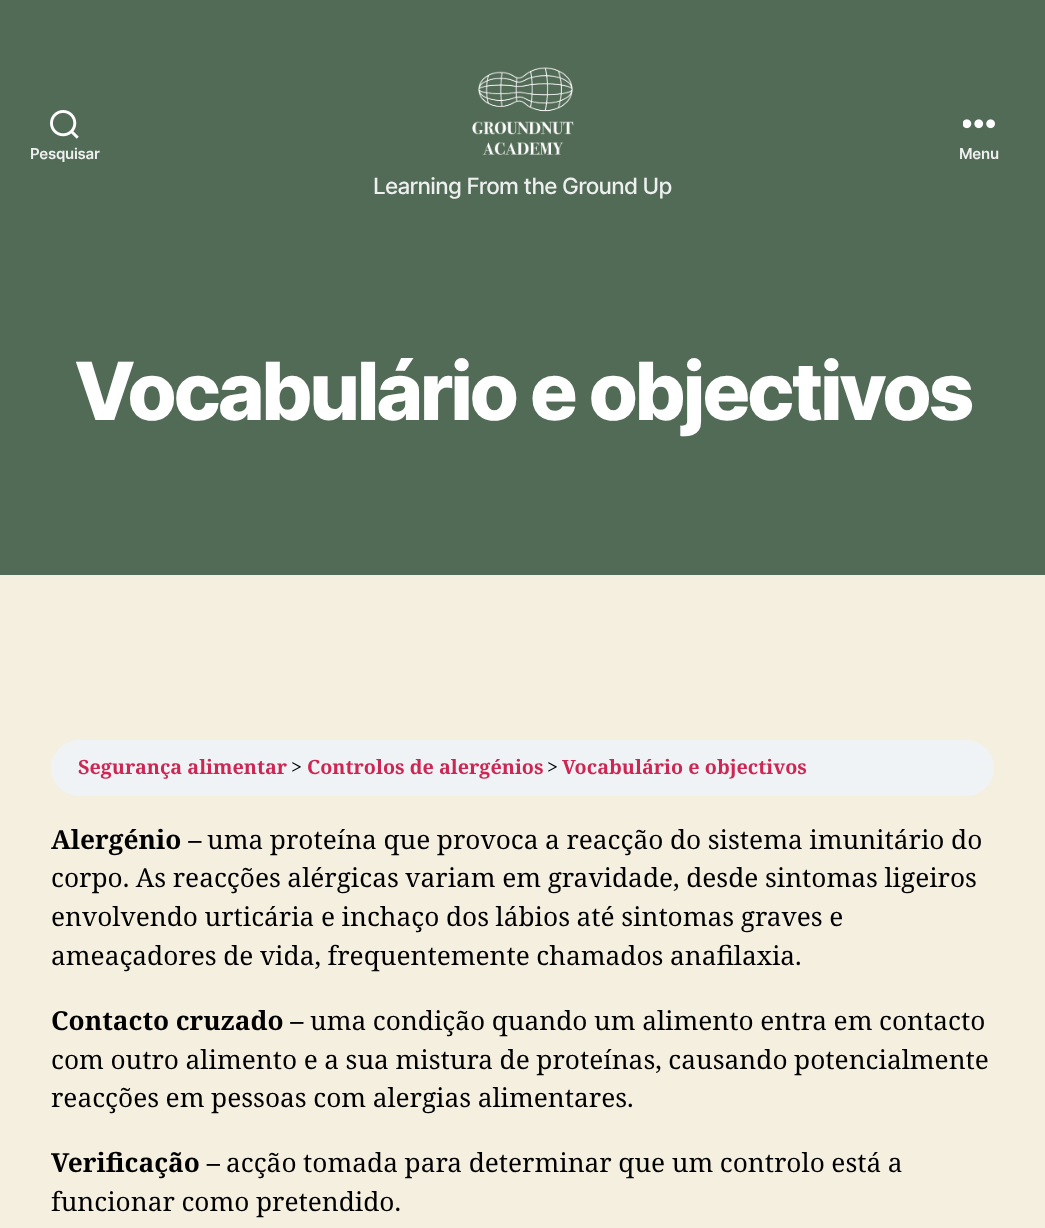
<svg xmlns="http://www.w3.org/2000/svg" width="1045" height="1228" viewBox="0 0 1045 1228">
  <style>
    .t1 { font: 600 15px Inter; letter-spacing: -0.25px; fill: #eef0f0; }
    .t2 { font: 500 22.5px Inter; letter-spacing: -0.7px; fill: #eef0f0; }
    .t3 { font: 800 80px Inter; letter-spacing: -3.3px; fill: #fff; }
    .t4 { font: bold 19.75px Noto Serif; fill: #cd2653; }
    .t5 { font: 19.75px Noto Serif; fill: #000; }
    .t6 { font: bold 26.25px Noto Serif; fill: #000; }
    .t7 { font: 26.25px Noto Serif; fill: #000; }
  </style>
  <rect width="100%" height="100%" fill="#f5efe0"/>
  <rect x="0" y="0" width="1045" height="575" fill="#526b56"/>
  <image x="50" y="110" width="29" height="29" href="images/1.png"/>
  <text x="30" y="159" class="t1">Pesquisar</text>
  <image x="963" y="119" width="32" height="10" href="images/2.png"/>
  <text x="959" y="159" class="t1">Menu</text>
  <image x="472" y="67" width="102" height="88" href="images/3.png"/>
  <text x="373" y="194" class="t2">Learning From the Ground Up</text>
  <text x="74" y="420" class="t3">Vocabulário e objectivos</text>
  <rect x="51" y="740" width="943" height="56" rx="28" fill="#f0f3f6"/>
  <text x="78" y="774" class="t4">Segurança alimentar</text>
  <text x="291" y="774" class="t5">&gt;</text>
  <text x="307" y="774" class="t4">Controlos de alergénios</text>
  <text x="547" y="774" class="t5">&gt;</text>
  <text x="562" y="774" class="t4">Vocabulário e objectivos</text>
  <text x="51" y="849" class="t6">Alergénio –</text>
  <text x="207" y="849" word-spacing="-0.25" class="t7">uma proteína que provoca a reacção do sistema imunitário do</text>
  <text x="51" y="887" word-spacing="-0.25" class="t7">corpo. As reacções alérgicas variam em gravidade, desde sintomas ligeiros</text>
  <text x="51" y="926" word-spacing="-0.25" class="t7">envolvendo urticária e inchaço dos lábios até sintomas graves e</text>
  <text x="51" y="965" word-spacing="-0.25" class="t7">ameaçadores de vida, frequentemente chamados anafilaxia.</text>
  <text x="51" y="1030" word-spacing="-0.25" class="t6">Contacto cruzado –</text>
  <text x="310" y="1030" word-spacing="-0.25" class="t7">uma condição quando um alimento entra em contacto</text>
  <text x="51" y="1069" word-spacing="-0.25" class="t7">com outro alimento e a sua mistura de proteínas, causando potencialmente</text>
  <text x="51" y="1107" word-spacing="-0.25" class="t7">reacções em pessoas com alergias alimentares.</text>
  <text x="51" y="1172" class="t6">Verificação –</text>
  <text x="226" y="1172" word-spacing="-0.25" class="t7">acção tomada para determinar que um controlo está a</text>
  <text x="51" y="1211" word-spacing="-0.25" class="t7">funcionar como pretendido.</text>
</svg>
